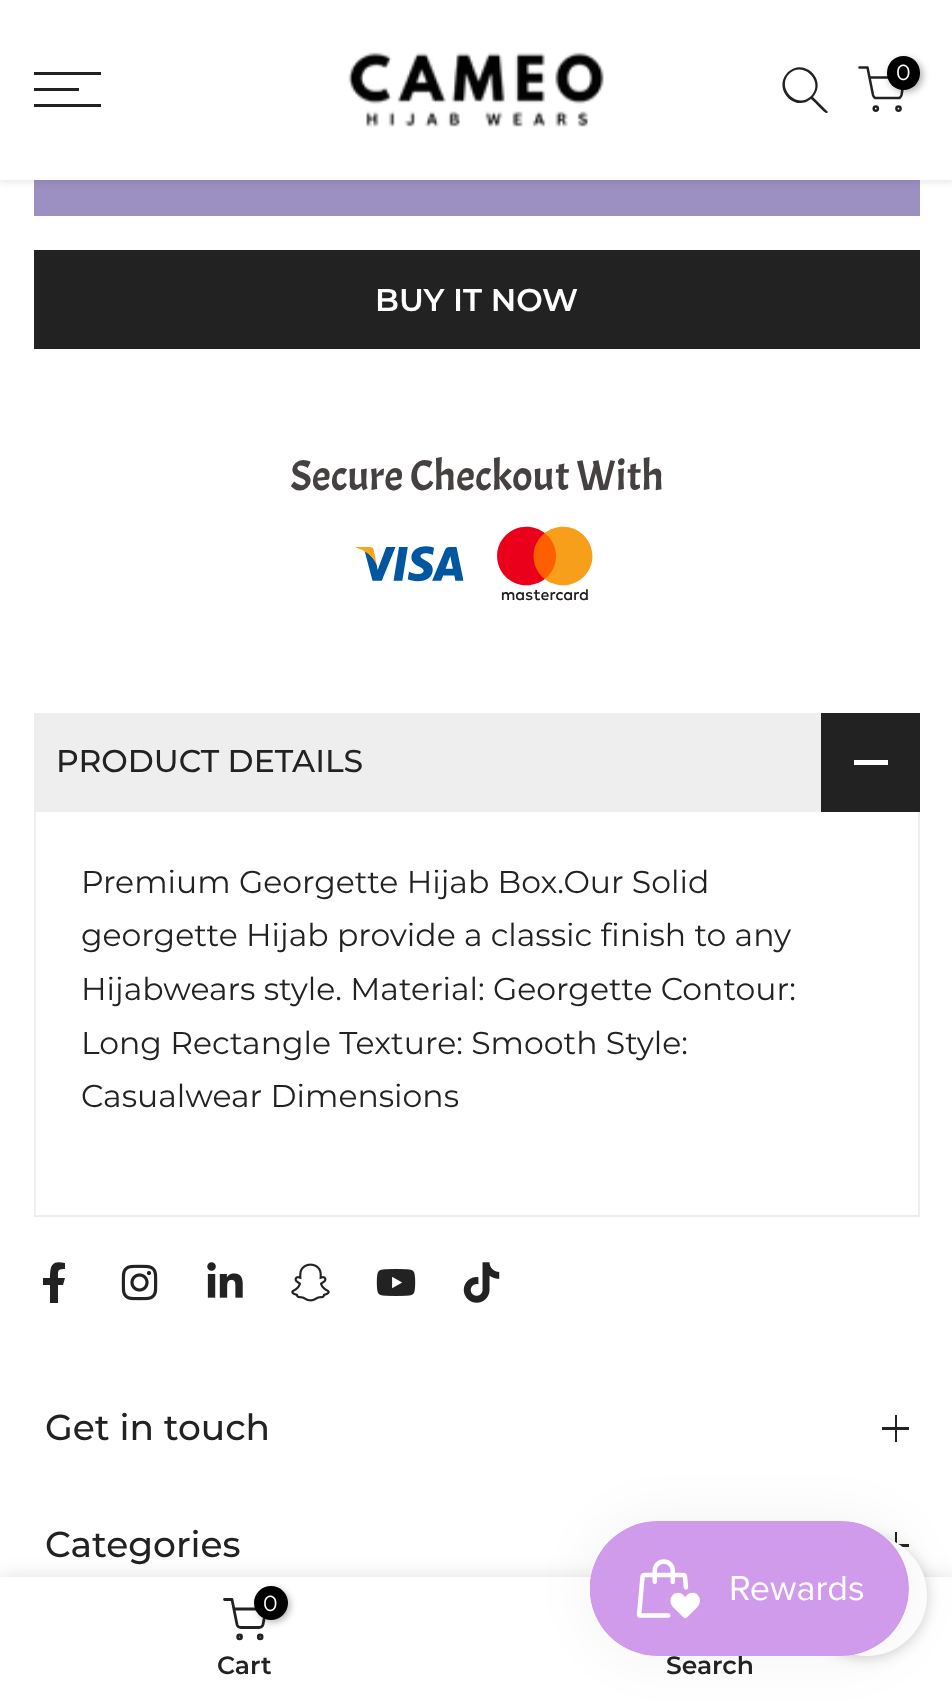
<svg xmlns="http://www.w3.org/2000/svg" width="952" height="1701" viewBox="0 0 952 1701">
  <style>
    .t1 { font: 22px Montserrat; fill: #fff; }
    .t2 { font: 600 31.5px Montserrat; fill: #fff; }
    .t3 { font: 500 31.5px Montserrat; fill: #222; }
    .t4 { font: 31.5px Montserrat; fill: #222; }
    .t5 { font: 500 36px Montserrat; fill: #222; }
    .t6 { font: 600 25px Montserrat; fill: #222; }
  </style>
  <rect width="100%" height="100%" fill="#fff"/>
  <rect x="34" y="180" width="886" height="36" fill="#9c90c2"/>
  <rect x="0" y="2" width="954" height="180" fill="#0000001a" filter="blur(3.5px)"/>
  <rect x="0" y="0" width="952" height="180" fill="#fff"/>
  <rect x="34" y="72" width="67" height="3" fill="#222"/>
  <rect x="34" y="88" width="45" height="3" fill="#222"/>
  <rect x="34" y="104" width="67" height="3" fill="#222"/>
  <image x="348" y="52" width="256" height="75" href="images/1.png"/>
  <path d="M811 96C797 110 776 88 789 74C803 60 825 82 811 96ZM811 99C794 113 772 88 788 72C804 57 828 80 813 97L828 112L827 113C825 114 814 101 811 99Z" fill="#222" fill-rule="evenodd"/>
  <path d="M859.5 67.5H867.5L873 95C873.5 97 875 98.5 877 98H897.5C899.5 98.5 901 97 901.5 95L904.5 77.5H869.5" fill="none" stroke="#222" stroke-width="2.5" stroke-linecap="round" stroke-linejoin="round"/>
  <rect x="889" y="59" width="34" height="33" rx="16.5" fill="#0000004d" filter="blur(3.5px)"/>
  <rect x="887" y="56" width="33" height="34" rx="16.5" fill="#000"/>
  <text x="896" y="80" class="t1">0</text>
  <circle cx="875.8" cy="108.6" r="2.1" fill="none" stroke="#222" stroke-width="2.5"/>
  <circle cx="898.5" cy="108.6" r="2.1" fill="none" stroke="#222" stroke-width="2.5"/>
  <rect x="34" y="250" width="886" height="99" fill="#222"/>
  <text x="375" y="311" class="t2">BUY IT NOW</text>
  <image x="291" y="457" width="371" height="144" href="images/2.png"/>
  <rect x="34" y="713" width="787" height="99" fill="#eee"/>
  <text x="56" y="772" class="t3">PRODUCT DETAILS</text>
  <rect x="821" y="713" width="99" height="99" fill="#222"/>
  <rect x="854" y="760" width="34" height="5" fill="#fff"/>
  <path d="M920 812V1217L918 1215V812Z" fill="#ededed"/>
  <path d="M920 1217H34L36 1215H918Z" fill="#22222214"/>
  <path d="M34 1217V812H36V1215Z" fill="#22222214"/>
  <text x="81" y="893" class="t4">Premium Georgette Hijab Box.Our Solid</text>
  <text x="81" y="946" class="t4">georgette Hijab provide a classic finish to any</text>
  <text x="81" y="1000" class="t4">Hijabwears style. Material: Georgette Contour:</text>
  <text x="81" y="1054" class="t4">Long Rectangle Texture: Smooth Style:</text>
  <text x="81" y="1107" class="t4">Casualwear Dimensions</text>
  <path d="M63 1285L65 1278H58C58 1271 57 1269 65 1269V1263C52 1260 50 1265 50 1278H43V1285H50V1303H58V1285Z" fill="#222"/>
  <image x="121" y="1264" width="37" height="37" href="images/3.png"/>
  <image x="207" y="1262" width="36" height="36" href="images/4.png"/>
  <image x="291" y="1263" width="39" height="39" href="images/5.png"/>
  <image x="376" y="1269" width="40" height="27" href="images/6.png"/>
  <image x="463" y="1262" width="37" height="41" href="images/7.png"/>
  <text x="45" y="1440" class="t5">Get in touch</text>
  <rect x="895" y="1415" width="2" height="27" fill="#222"/>
  <rect x="882" y="1427" width="27" height="3" fill="#222"/>
  <text x="45" y="1557" class="t5">Categories</text>
  <rect x="895" y="1532" width="2" height="12" fill="#222"/>
  <rect x="898" y="1544" width="11" height="3" fill="#222"/>
  <rect x="0" y="1577" width="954" height="124" fill="#0000001f" filter="blur(10px)"/>
  <rect x="0" y="1577" width="952" height="124" fill="#fff"/>
  <rect x="806" y="1537" width="121" height="121" rx="60.5" fill="#1b1b1b33" filter="blur(7px)"/>
  <circle cx="866.5" cy="1595.5" r="59.5" fill="#fff" stroke="#fff" stroke-width="2"/>
  <rect x="590" y="1521" width="319" height="135" rx="67.5" fill="#0000000d" filter="blur(28px)"/>
  <text x="666" y="1674" class="t6">Search</text>
  <image x="589" y="1521" width="320" height="135" href="images/8.png"/>
  <path d="M224.5 1599.5H232L237 1624.5C237.5 1626.5 239 1627.5 241 1627.5H259C261 1627.5 262.5 1626.5 263 1624.5L266 1609H234" fill="none" stroke="#222" stroke-width="2.8" stroke-linecap="round" stroke-linejoin="round"/>
  <circle cx="260.2" cy="1636.9" r="1.9" fill="none" stroke="#222" stroke-width="2.8"/>
  <rect x="257" y="1589" width="33" height="33" rx="16.5" fill="#0000004d" filter="blur(3.5px)"/>
  <circle cx="271" cy="1603" r="17" fill="#000"/>
  <text x="263" y="1611" class="t1">0</text>
  <circle cx="239.6" cy="1636.9" r="1.9" fill="none" stroke="#222" stroke-width="2.8"/>
  <text x="217" y="1674" class="t6">Cart</text>
</svg>
